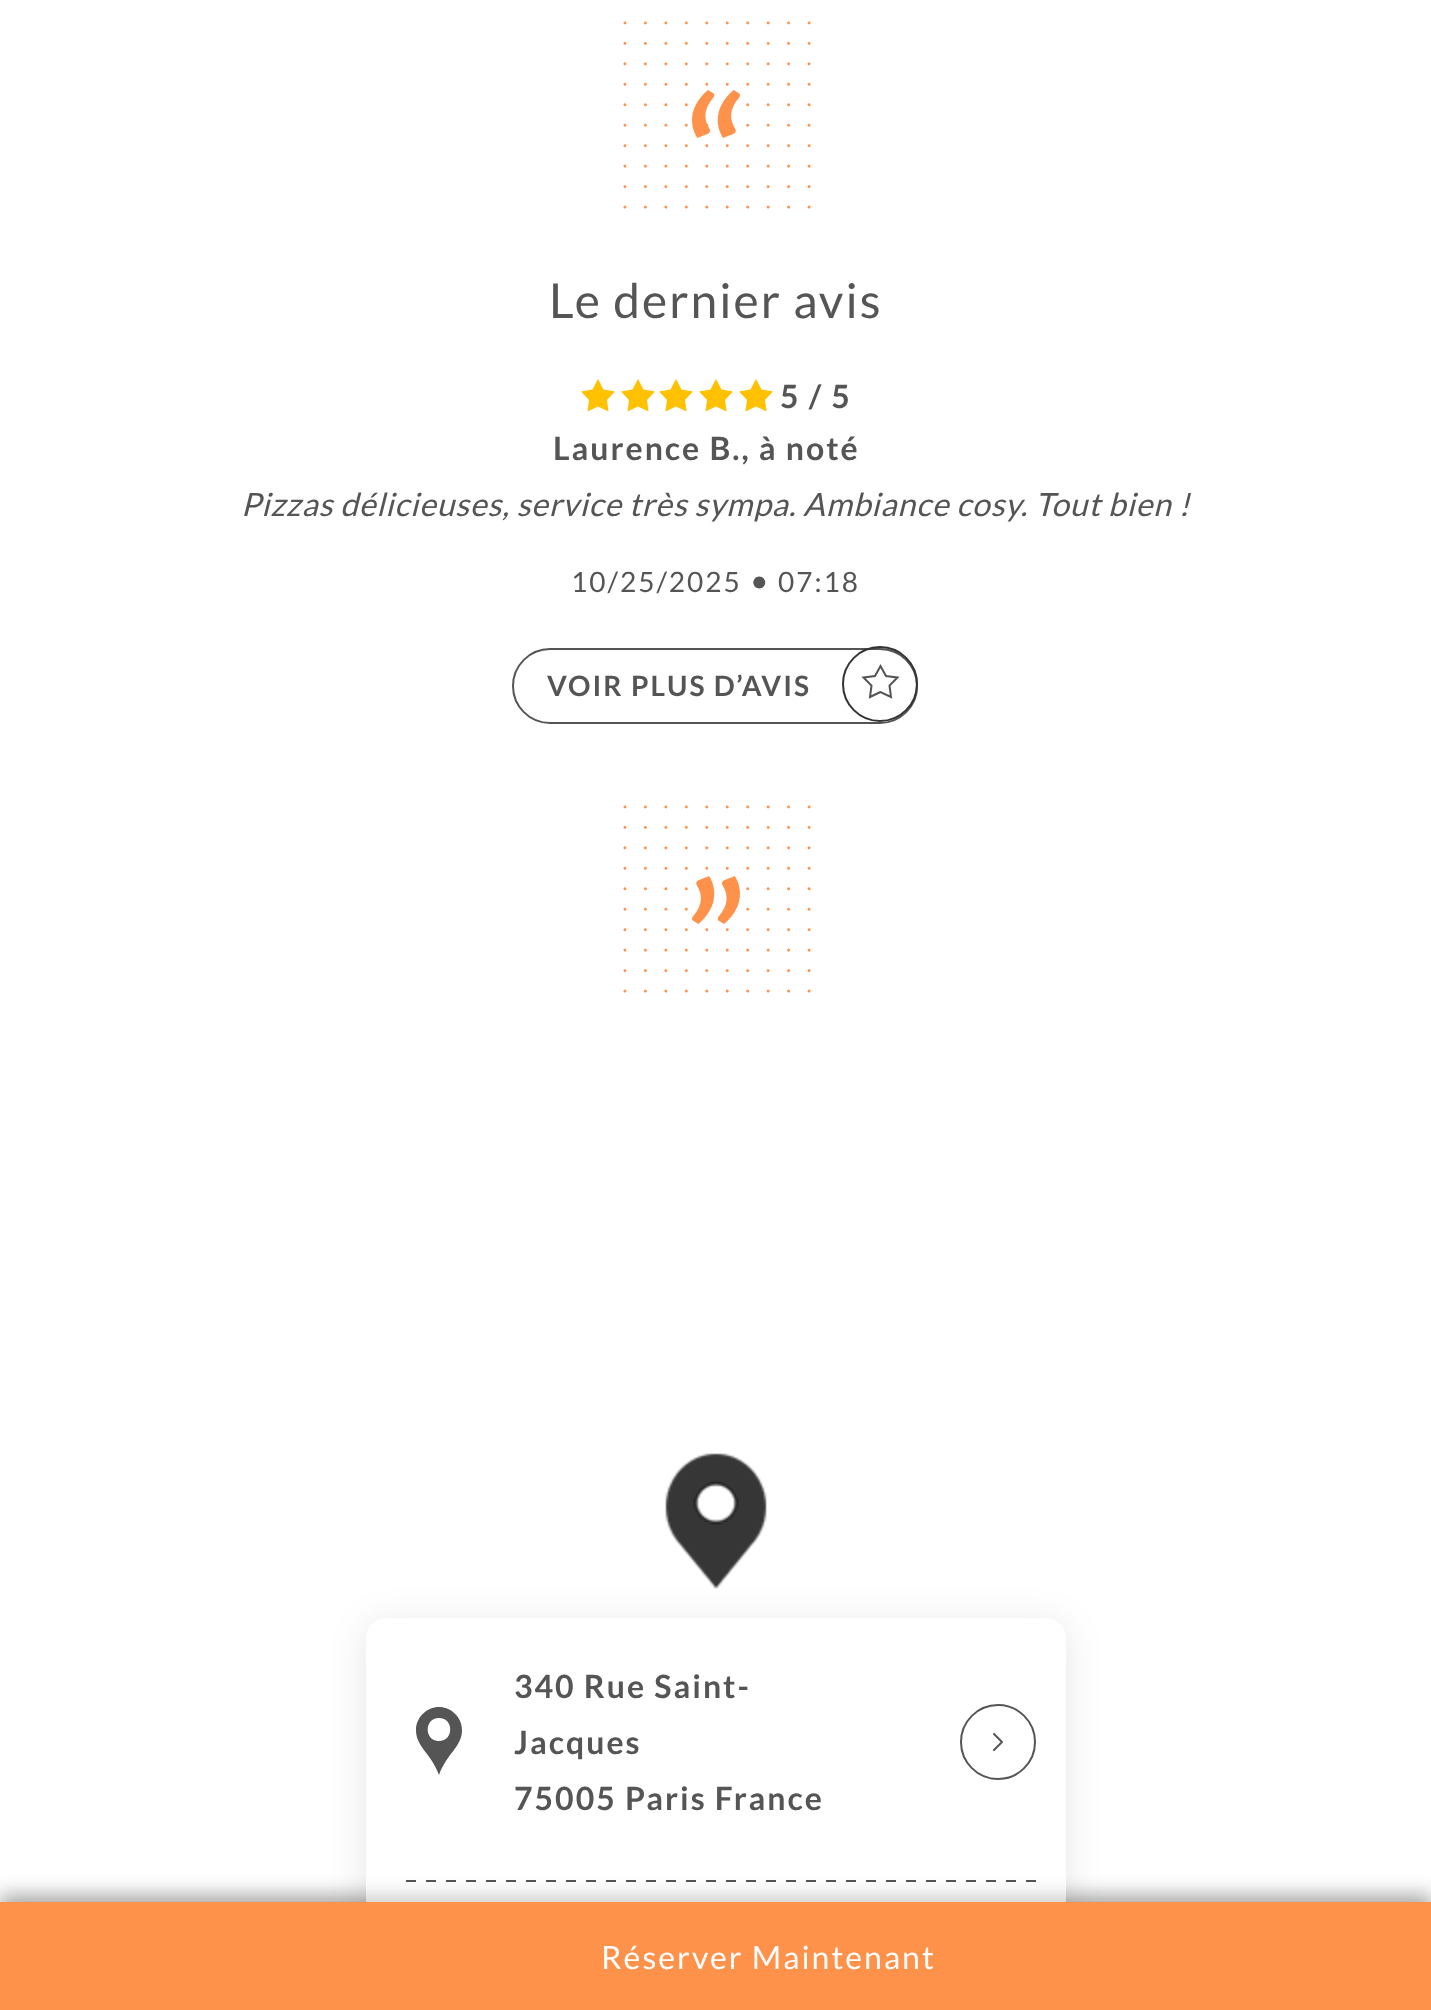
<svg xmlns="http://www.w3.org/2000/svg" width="1431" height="2010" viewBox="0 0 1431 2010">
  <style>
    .t1 { font: 48px Lato; letter-spacing: 2px; fill: #555; }
    .t2 { font: bold 32px Lato; letter-spacing: 2px; fill: #555; }
    .t3 { font: italic 32px Lato; letter-spacing: 0.78px; fill: #555; }
    .t4 { font: 28px Lato; letter-spacing: 2px; fill: #555; }
    .t5 { font: 32px Lato; letter-spacing: 2px; fill: #555; }
    .t6 { font: bold 28px Lato; letter-spacing: 2px; fill: #555; }
    .t7 { font: 32px Lato; letter-spacing: 2px; fill: #fff; }
  </style>
  <rect width="100%" height="100%" fill="#fff"/>
  <text x="549" y="318" class="t1">Le dernier avis</text>
  <image x="623" y="21" width="188" height="188" href="images/1.png"/>
  <image x="692" y="90" width="48" height="48" href="images/2.png"/>
  <path d="M598 406.5L587.5 411.5L589 400L581 391.5L592.5 389.5L598 379L603.5 389.5L615 391.5L607 400L608.5 411.5Z" fill="#ffc100" fill-rule="evenodd"/>
  <path d="M638 406.5L627.5 411.5L629 400L621 391.5L632.5 389.5L638 379L643.5 389.5L655 391.5L647 400L648.5 411.5Z" fill="#ffc100" fill-rule="evenodd"/>
  <path d="M676 406.5L665.5 411.5L667 400L659 391.5L670.5 389.5L676 379L681.5 389.5L693 391.5L685 400L686.5 411.5Z" fill="#ffc100" fill-rule="evenodd"/>
  <path d="M716 406.5L705.5 411.5L707 400L699 391.5L710.5 389.5L716 379L721.5 389.5L733 391.5L725 400L726.5 411.5Z" fill="#ffc100" fill-rule="evenodd"/>
  <path d="M756 406.5L745.5 411.5L747 400L739 391.5L750.5 389.5L756 379L761.5 389.5L773 391.5L765 400L766.5 411.5Z" fill="#ffc100" fill-rule="evenodd"/>
  <text x="780" y="408" class="t2">5 / 5</text>
  <text x="553" y="460" class="t2">Laurence B., à noté</text>
  <text x="241" y="516" class="t3">Pizzas délicieuses, service très sympa. Ambiance cosy. Tout bien !</text>
  <text x="571" y="592" class="t4">10/25/2025</text>
  <text x="750" y="592" class="t5">•</text>
  <text x="778" y="592" class="t4">07:18</text>
  <rect x="513" y="649" width="404" height="74" rx="37" fill="none" stroke="#555" stroke-width="2"/>
  <text x="547" y="696" class="t6">VOIR PLUS D’AVIS</text>
  <circle cx="880" cy="684" r="37" fill="none" stroke="#333" stroke-width="2"/>
  <path d="M880.5 692L870 697L871.5 685.5L863.5 677.5L875 676L880.5 666L886 676L897.5 677.5L889.5 685.5L891 697Z" fill="none" stroke="#545454" stroke-width="2"/>
  <image x="623" y="805" width="188" height="188" href="images/1.png"/>
  <image x="692" y="876" width="48" height="48" href="images/3.png"/>
  <image x="665" y="1453" width="102" height="136" href="images/4.png"/>
  <rect x="366" y="1624" width="700" height="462" rx="20" fill="#0000001a" filter="blur(18.5px)"/>
  <rect x="0" y="1896" width="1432" height="108" fill="#00000033" filter="blur(10px)"/>
  <rect x="366" y="1618" width="700" height="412" rx="20" fill="#fff"/>
  <image x="406" y="1880" width="630" height="2" href="images/5.png"/>
  <path d="M439 1707C427 1707 416 1717 416 1730C416 1747 431 1753 439 1775C447 1753 462 1747 462 1730C462 1717 451 1707 439 1707ZM439 1741C424 1741 424 1718 439 1718C454 1718 454 1741 439 1741Z" fill="#555"/>
  <text x="514" y="1698" class="t2">340 Rue Saint-</text>
  <text x="514" y="1754" class="t2">Jacques</text>
  <text x="514" y="1810" class="t2">75005 Paris France</text>
  <circle cx="998" cy="1742" r="37" fill="none" stroke="#555" stroke-width="2"/>
  <path d="M994 1750L1002 1742L994 1734" fill="none" stroke="#555" stroke-width="2" stroke-linecap="round" stroke-linejoin="round"/>
  <rect x="0" y="1896" width="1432" height="108" fill="#00000033" filter="blur(10px)"/>
  <rect x="0" y="1902" width="1431" height="108" fill="#ff924a"/>
  <text x="601" y="1969" class="t7">Réserver Maintenant</text>
</svg>
